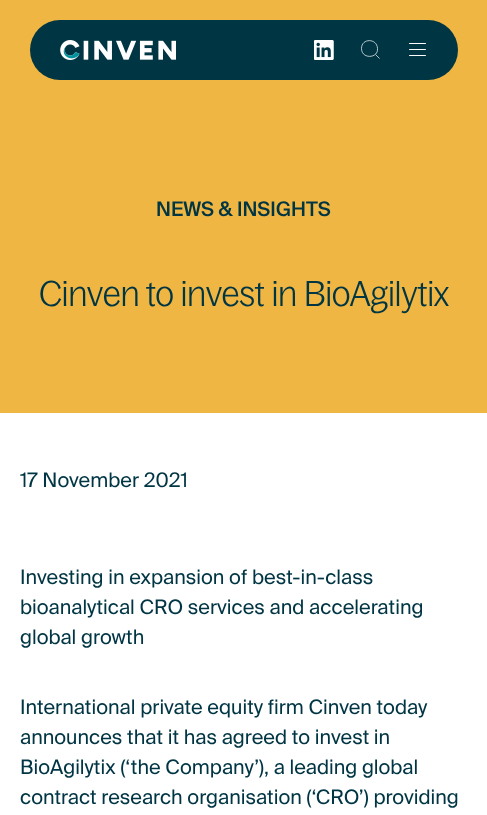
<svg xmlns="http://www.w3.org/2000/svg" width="487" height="815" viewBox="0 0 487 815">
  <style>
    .t1 { font: 500 20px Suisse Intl; fill: #003544; }
    .t2 { font: 300 35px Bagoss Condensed; letter-spacing: -0.35px; fill: #003544; }
    .t3 { font: 20px Suisse Intl; fill: #003544; }
  </style>
  <rect width="100%" height="100%" fill="#fff"/>
  <rect x="0" y="0" width="487" height="413" fill="#f0b643"/>
  <rect x="30" y="20" width="428" height="60" rx="30" fill="#003544"/>
  <image x="60" y="40" width="116" height="20" href="images/1.png"/>
  <image x="314" y="40" width="20" height="20" href="images/2.png"/>
  <path d="M375.5 54.5L379.5 58.5M361.5 48.5C361.5 59.5 378.5 58.5 377.5 48.5C377 38 361.5 38 361.5 48.5Z" fill="none" stroke="#fff" stroke-width="0.7"/>
  <rect x="409" y="43" width="17" height="1" rx="0.5" fill="#fff"/>
  <rect x="409" y="49" width="17" height="1" rx="0.5" fill="#fff"/>
  <rect x="409" y="55" width="17" height="1" rx="0.5" fill="#fff"/>
  <text x="156" y="216" class="t1">NEWS &amp; INSIGHTS</text>
  <text x="39" y="306" class="t2">Cinven to invest in BioAgilytix</text>
  <text x="20" y="487" class="t3">17 November 2021</text>
  <text x="20" y="584" class="t3">Investing in expansion of best-in-class</text>
  <text x="20" y="614" class="t3">bioanalytical CRO services and accelerating</text>
  <text x="20" y="644" class="t3">global growth</text>
  <text x="20" y="714" class="t3">International private equity firm Cinven today</text>
  <text x="20" y="744" class="t3">announces that it has agreed to invest in</text>
  <text x="20" y="774" class="t3">BioAgilytix (‘the Company’), a leading global</text>
  <text x="20" y="804" class="t3">contract research organisation (‘CRO’) providing</text>
</svg>
